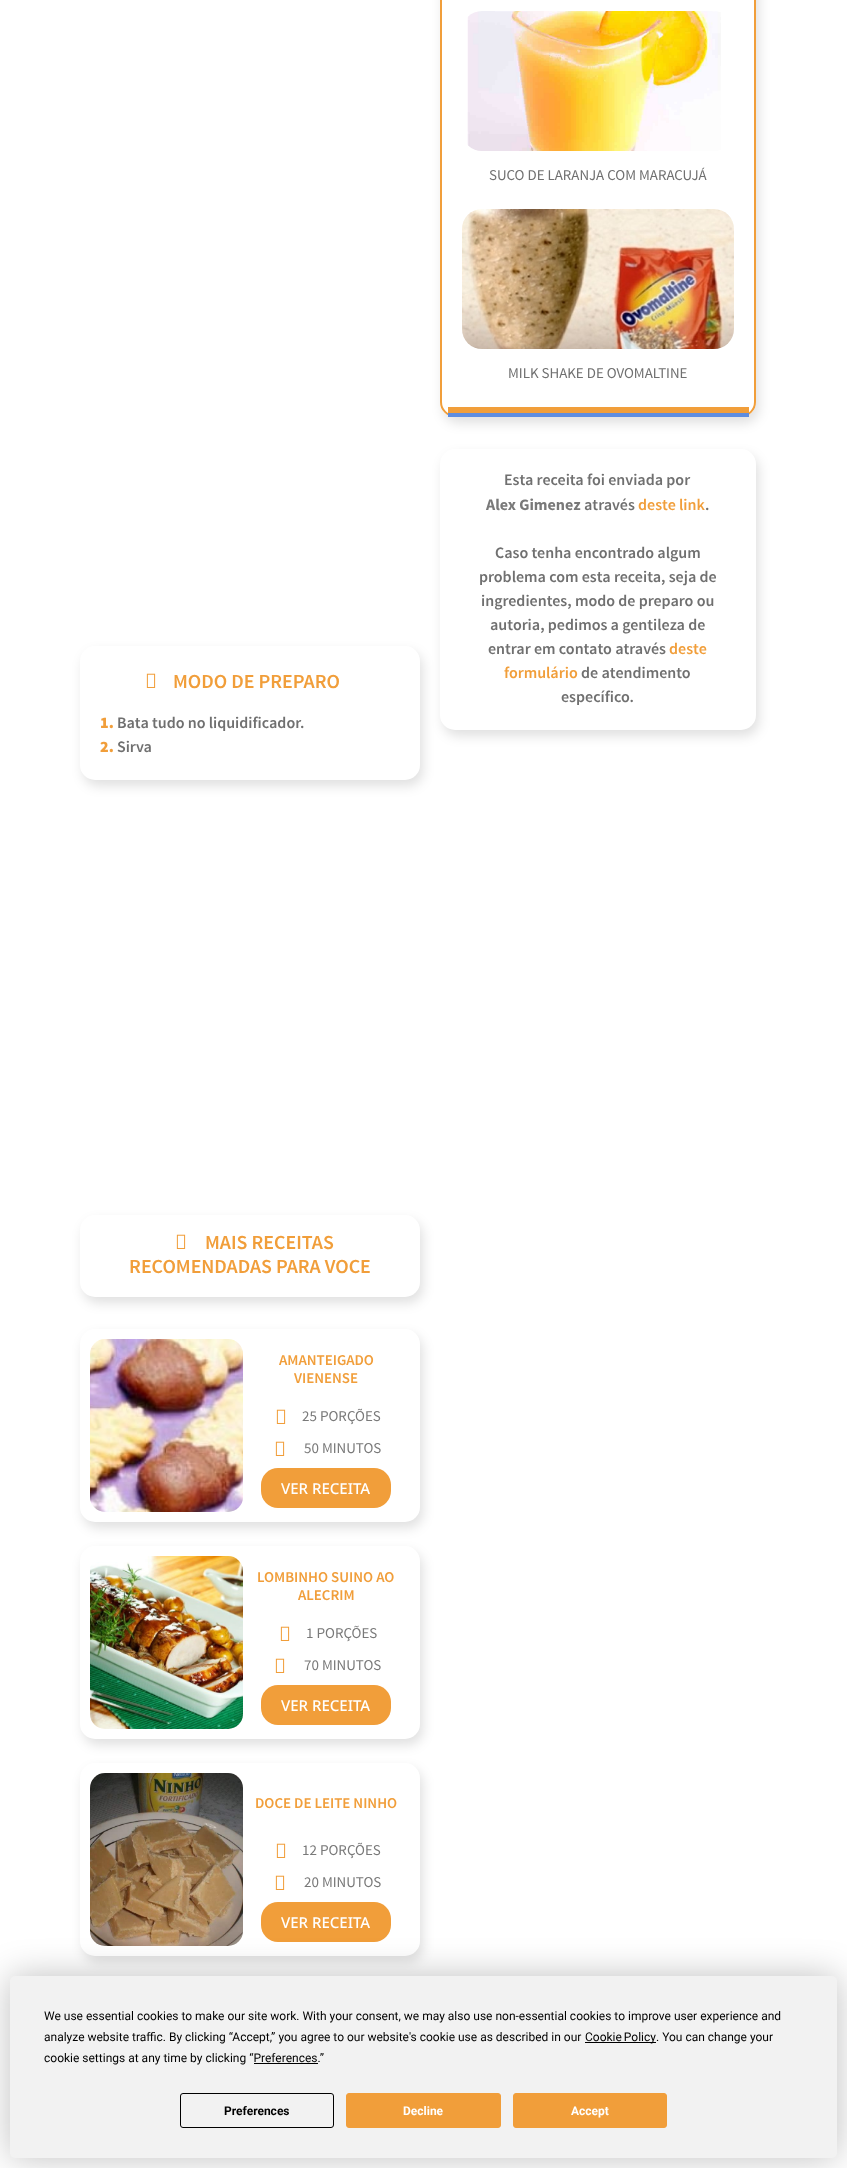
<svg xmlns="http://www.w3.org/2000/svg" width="847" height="2168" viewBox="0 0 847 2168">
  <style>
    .t1 { font: 15px Source Sans Pro; fill: #707070; }
    .t2 { font: 600 16px Source Sans Pro; fill: #707070; }
    .t3 { font: bold 16px Source Sans Pro; fill: #797979; }
    .t4 { font: 600 16px Source Sans Pro; fill: #f19e3a; }
    .t5 { font: 600 20px Source Sans Pro; fill: #f19e3a; }
    .t6 { font: 900 16px Source Sans Pro; fill: #f19e3a; }
    .t7 { font: 600 15px Source Sans Pro; fill: #f19e3a; }
    .t8 { font: 15px Source Sans Pro; fill: #797979; }
    .t9 { font: 500 15px Noto Sans; fill: #fff; }
    .t10 { font: 12px Roboto; fill: #000; }
    .t11 { font: bold 12px Roboto; fill: #000; }
    .t12 { font: bold 12px Roboto; fill: #fff; }
  </style>
  <defs>
    <clipPath id="clip1"><path d="M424 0H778V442H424ZM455-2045H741C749.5-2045 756-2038.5 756-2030V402C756 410.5 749.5 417 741 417H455C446.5 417 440 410.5 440 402V-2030C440-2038.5 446.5-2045 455-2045Z" clip-rule="evenodd"/></clipPath>
  </defs>
  <rect width="100%" height="100%" fill="#fff"/>
  <g clip-path="url(#clip1)">
    <rect x="443" y="-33" width="316" height="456" rx="15" fill="#0000001f" filter="blur(6px)"/>
  </g>
  <rect x="441" y="-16" width="314" height="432" rx="14" fill="none" stroke="#f19e3a" stroke-width="2"/>
  <rect x="448" y="407" width="301" height="6" fill="#f19e3a"/>
  <image x="467" y="11" width="254" height="140" href="images/1.png"/>
  <text x="489" y="180" class="t1">SUCO DE LARANJA COM MARACUJÁ</text>
  <image x="462" y="209" width="272" height="140" href="images/2.png"/>
  <text x="508" y="378" class="t1">MILK SHAKE DE OVOMALTINE</text>
  <rect x="448" y="413" width="301" height="4" fill="#5e8de0"/>
  <rect x="443" y="455" width="316" height="281" rx="15" fill="#0000001f" filter="blur(6px)"/>
  <rect x="83" y="652" width="340" height="134" rx="15" fill="#0000001f" filter="blur(6px)"/>
  <rect x="440" y="449" width="316" height="281" rx="15" fill="#fff"/>
  <text x="504" y="485" class="t2">Esta receita foi enviada por</text>
  <text x="486" y="510" class="t3">Alex Gimenez</text>
  <text x="584" y="510" class="t2">através</text>
  <text x="638" y="510" class="t4">deste link</text>
  <text x="705" y="510" class="t2">.</text>
  <text x="495" y="558" class="t2">Caso tenha encontrado algum</text>
  <text x="479" y="582" class="t2">problema com esta receita, seja de</text>
  <text x="481" y="606" class="t2">ingredientes, modo de preparo ou</text>
  <text x="490" y="630" class="t2">autoria, pedimos a gentileza de</text>
  <text x="488" y="654" class="t2">entrar em contato através</text>
  <text x="669" y="654" class="t4">deste</text>
  <text x="504" y="678" class="t4">formulário</text>
  <text x="581" y="678" class="t2">de atendimento</text>
  <text x="561" y="702" class="t2">específico.</text>
  <rect x="80" y="646" width="340" height="134" rx="15" fill="#fff"/>
  <image x="146" y="673" width="10" height="15" href="images/3.png"/>
  <text x="173" y="688" class="t5">MODO DE PREPARO</text>
  <text x="100" y="728" class="t6">1.</text>
  <text x="117" y="728" class="t2">Bata tudo no liquidificador.</text>
  <text x="100" y="752" class="t6">2.</text>
  <text x="117" y="752" class="t2">Sirva</text>
  <rect x="83" y="1221" width="340" height="82" rx="15" fill="#0000001f" filter="blur(6px)"/>
  <rect x="80" y="1215" width="340" height="82" rx="15" fill="#fff"/>
  <image x="176" y="1234" width="10" height="15" href="images/3.png"/>
  <text x="205" y="1249" class="t5">MAIS RECEITAS</text>
  <text x="129" y="1273" class="t5">RECOMENDADAS PARA VOCE</text>
  <rect x="83" y="1335" width="340" height="193" rx="15" fill="#0000001f" filter="blur(6px)"/>
  <rect x="80" y="1329" width="340" height="193" rx="15" fill="#fff"/>
  <image x="90" y="1339" width="153" height="173" href="images/4.png"/>
  <text x="279" y="1365" class="t7">AMANTEIGADO</text>
  <text x="294" y="1383" class="t7">VIENENSE</text>
  <image x="276" y="1409" width="10" height="15" href="images/3.png"/>
  <text x="302" y="1421" class="t8">25 PORÇÕES</text>
  <image x="275" y="1441" width="10" height="15" href="images/3.png"/>
  <text x="304" y="1453" class="t8">50 MINUTOS</text>
  <rect x="261" y="1468" width="130" height="40" rx="17" fill="#f19e3a"/>
  <text x="281" y="1494" class="t9">VER RECEITA</text>
  <rect x="83" y="1552" width="340" height="193" rx="15" fill="#0000001f" filter="blur(6px)"/>
  <rect x="80" y="1546" width="340" height="193" rx="15" fill="#fff"/>
  <image x="90" y="1556" width="153" height="173" href="images/5.png"/>
  <text x="257" y="1582" class="t7">LOMBINHO SUINO AO</text>
  <text x="298" y="1600" class="t7">ALECRIM</text>
  <image x="280" y="1626" width="10" height="15" href="images/3.png"/>
  <text x="306" y="1638" class="t8">1 PORÇÕES</text>
  <image x="275" y="1658" width="10" height="15" href="images/3.png"/>
  <text x="304" y="1670" class="t8">70 MINUTOS</text>
  <rect x="261" y="1685" width="130" height="40" rx="17" fill="#f19e3a"/>
  <text x="281" y="1711" class="t9">VER RECEITA</text>
  <rect x="83" y="1769" width="340" height="193" rx="15" fill="#0000001f" filter="blur(6px)"/>
  <rect x="80" y="1763" width="340" height="193" rx="15" fill="#fff"/>
  <image x="90" y="1773" width="153" height="173" href="images/6.png"/>
  <text x="255" y="1808" class="t7">DOCE DE LEITE NINHO</text>
  <image x="276" y="1843" width="10" height="15" href="images/3.png"/>
  <text x="302" y="1855" class="t8">12 PORÇÕES</text>
  <image x="275" y="1875" width="10" height="15" href="images/3.png"/>
  <text x="304" y="1887" class="t8">20 MINUTOS</text>
  <rect x="261" y="1902" width="130" height="40" rx="17" fill="#f19e3a"/>
  <text x="281" y="1928" class="t9">VER RECEITA</text>
  <rect x="10" y="1976" width="827" height="182" rx="5" fill="#00000040" filter="blur(17.5px)"/>
  <rect x="10" y="1976" width="827" height="182" rx="5" fill="#f2f2f2"/>
  <text x="44" y="2020" class="t10">We use essential cookies to make our site work. With your consent, we may also use non-essential cookies to improve user experience and</text>
  <text x="44" y="2041" class="t10">analyze website traffic. By clicking “Accept,” you agree to our website's cookie use as described in our</text>
  <rect x="585" y="2042" width="71" height="1" fill="#000"/>
  <text x="585" y="2041" word-spacing="-1" class="t10">Cookie Policy</text>
  <text x="656" y="2041" class="t10">. You can change your</text>
  <text x="44" y="2062" class="t10">cookie settings at any time by clicking “Preferences.”</text>
  <rect x="254" y="2063" width="64" height="1" fill="#000"/>
  <rect x="180.5" y="2093.5" width="153" height="34" rx="2.5" fill="none" stroke="#000"/>
  <text x="224" y="2115" class="t11">Preferences</text>
  <rect x="346.5" y="2093.5" width="154" height="34" rx="2.5" fill="#f19e3a" stroke="#f19e3a"/>
  <text x="403" y="2115" class="t12">Decline</text>
  <rect x="513.5" y="2093.5" width="153" height="34" rx="2.5" fill="#f19e3a" stroke="#f19e3a"/>
  <text x="571" y="2115" class="t12">Accept</text>
</svg>
